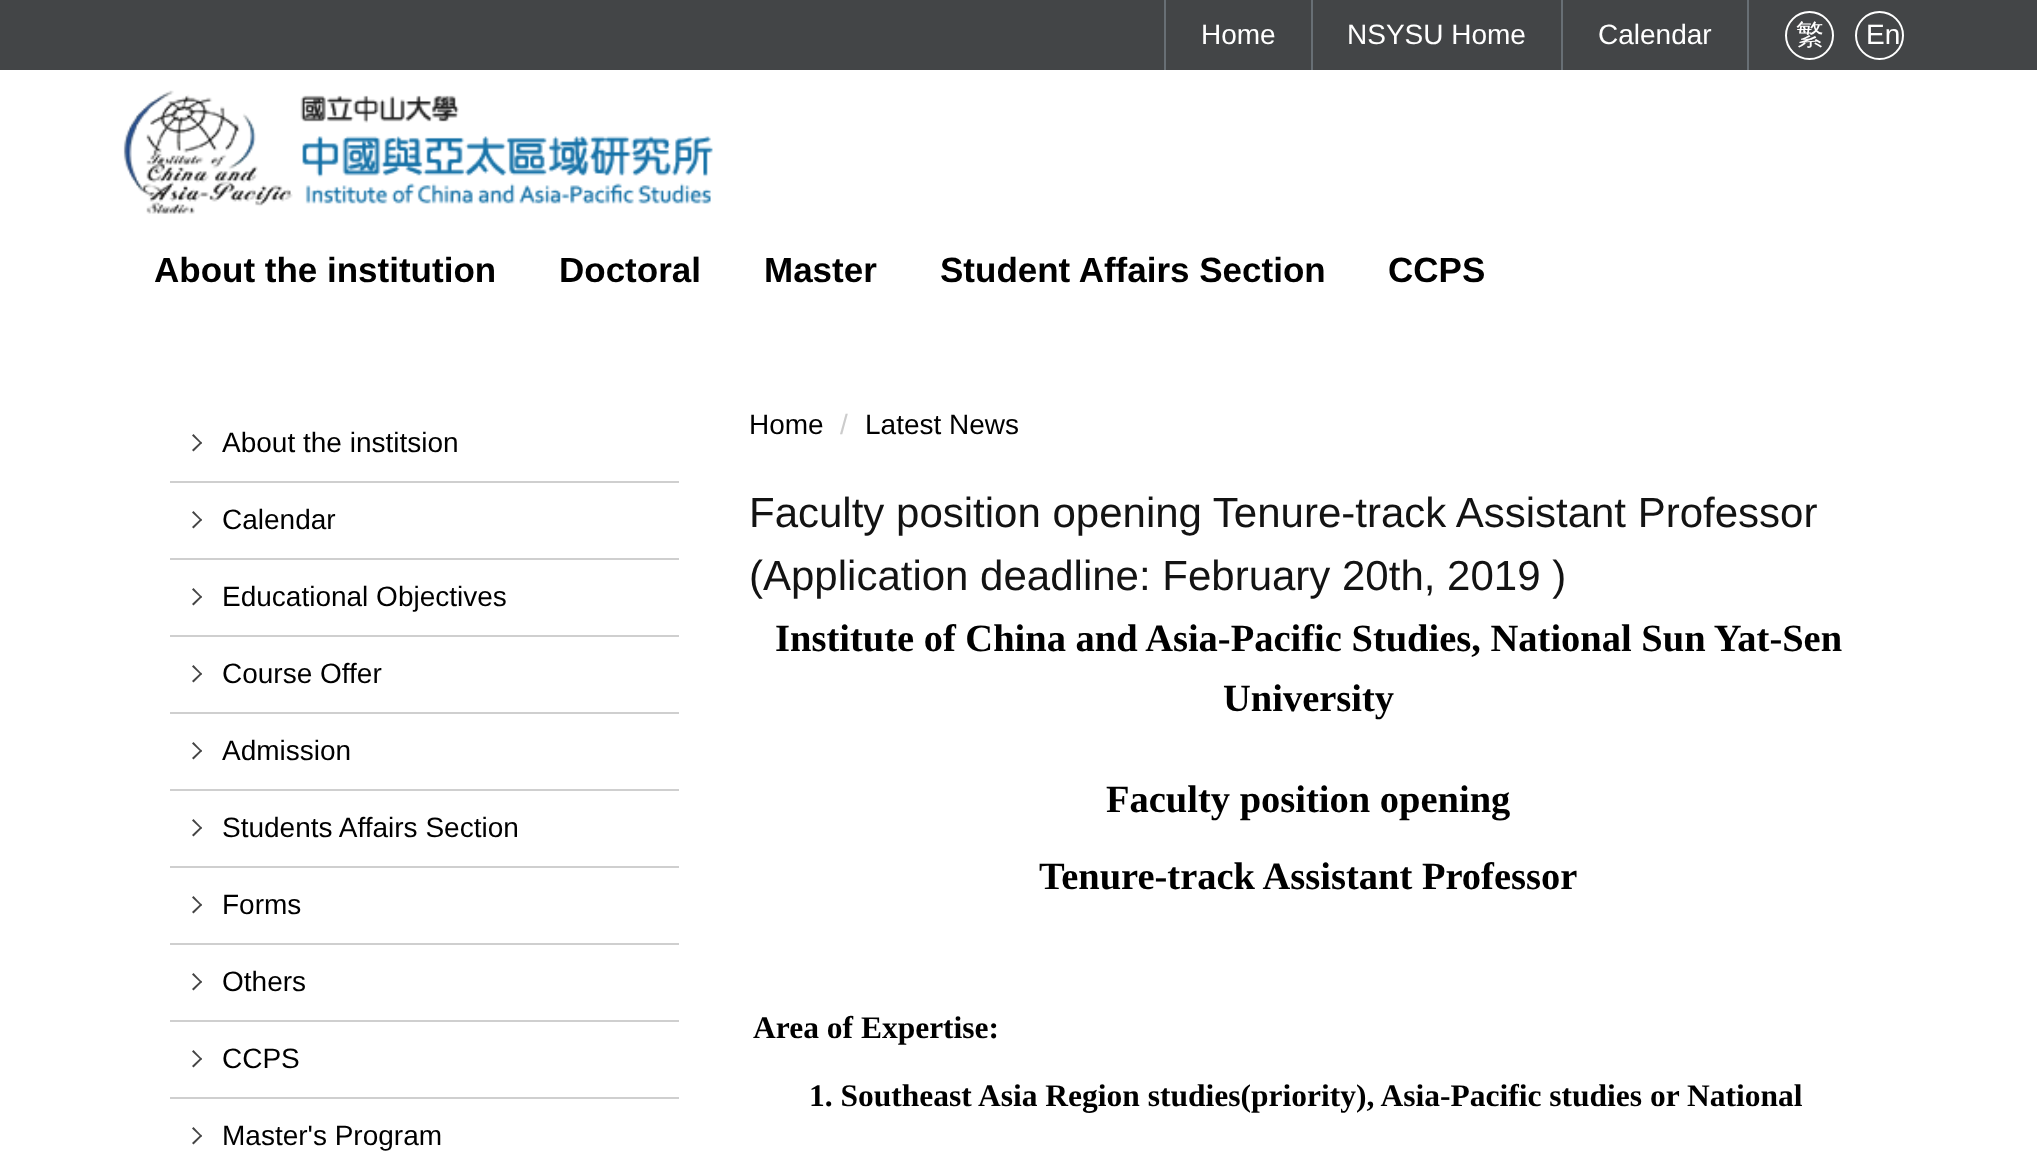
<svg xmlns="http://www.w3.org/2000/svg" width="2037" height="1157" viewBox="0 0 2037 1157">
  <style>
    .t1 { font: 28px Liberation Sans; fill: #fff; }
    .t2 { font: bold 35px Liberation Sans; fill: #000; }
    .t3 { font: 500 28px WenQuanYi Zen Hei; fill: #fff; }
    .t4 { font: 28px Liberation Sans; fill: #000; }
    .t5 { font: 28px Liberation Sans; fill: #ccc; }
    .t6 { font: 42px Liberation Sans; fill: #131313; }
    .t7 { font: bold 38.5px Liberation Serif; fill: #000; }
    .t8 { font: bold 31.5px Liberation Serif; fill: #000; }
  </style>
  <rect width="100%" height="100%" fill="#fff"/>
  <rect x="0" y="0" width="2037" height="70" fill="#434547"/>
  <rect x="1164" y="0" width="2" height="70" fill="#686f75"/>
  <text x="1201" y="44" class="t1">Home</text>
  <rect x="1311" y="0" width="2" height="70" fill="#686f75"/>
  <text x="1347" y="44" class="t1">NSYSU Home</text>
  <rect x="1747" y="0" width="2" height="70" fill="#686f75"/>
  <rect x="1561" y="0" width="2" height="70" fill="#686f75"/>
  <text x="1598" y="44" class="t1">Calendar</text>
  <text x="154" y="282" class="t2">About the institution</text>
  <text x="559" y="282" class="t2">Doctoral</text>
  <text x="764" y="282" class="t2">Master</text>
  <text x="940" y="282" class="t2">Student Affairs Section</text>
  <text x="1388" y="282" class="t2">CCPS</text>
  <circle cx="1809.5" cy="35.5" r="23.5" fill="none" stroke="#fff" stroke-width="2"/>
  <text x="1796" y="44" class="t3">繁</text>
  <circle cx="1879.5" cy="35.5" r="23.5" fill="none" stroke="#fff" stroke-width="2"/>
  <text x="1866" y="44" class="t1">En</text>
  <image x="123" y="90" width="590" height="124" href="images/1.png"/>
  <rect x="170" y="481" width="509" height="2" fill="#cfcfcf"/>
  <path d="M193.5 434L202 443L201 444L192 435.5Z" fill="#444"/>
  <path d="M201 441.5L202 443L193.5 451.5L192 450Z" fill="#444"/>
  <text x="222" y="452" class="t4">About the institsion</text>
  <rect x="170" y="558" width="509" height="2" fill="#cfcfcf"/>
  <path d="M193.5 511L202 520L201 521L192 512.5Z" fill="#444"/>
  <path d="M201 518.5L202 520L193.5 528.5L192 527Z" fill="#444"/>
  <text x="222" y="529" class="t4">Calendar</text>
  <rect x="170" y="635" width="509" height="2" fill="#cfcfcf"/>
  <path d="M193.5 588L202 597L201 598L192 589.5Z" fill="#444"/>
  <path d="M201 595.5L202 597L193.5 605.5L192 604Z" fill="#444"/>
  <text x="222" y="606" class="t4">Educational Objectives</text>
  <rect x="170" y="712" width="509" height="2" fill="#cfcfcf"/>
  <path d="M193.5 665L202 674L201 675L192 666.5Z" fill="#444"/>
  <path d="M201 672.5L202 674L193.5 682.5L192 681Z" fill="#444"/>
  <text x="222" y="683" class="t4">Course Offer</text>
  <rect x="170" y="789" width="509" height="2" fill="#cfcfcf"/>
  <path d="M193.5 742L202 751L201 752L192 743.5Z" fill="#444"/>
  <path d="M201 749.5L202 751L193.5 759.5L192 758Z" fill="#444"/>
  <text x="222" y="760" class="t4">Admission</text>
  <rect x="170" y="866" width="509" height="2" fill="#cfcfcf"/>
  <path d="M193.5 819L202 828L201 829L192 820.5Z" fill="#444"/>
  <path d="M201 826.5L202 828L193.5 836.5L192 835Z" fill="#444"/>
  <text x="222" y="837" class="t4">Students Affairs Section</text>
  <rect x="170" y="943" width="509" height="2" fill="#cfcfcf"/>
  <path d="M193.5 896L202 905L201 906L192 897.5Z" fill="#444"/>
  <path d="M201 903.5L202 905L193.5 913.5L192 912Z" fill="#444"/>
  <text x="222" y="914" class="t4">Forms</text>
  <rect x="170" y="1020" width="509" height="2" fill="#cfcfcf"/>
  <path d="M193.5 973L202 982L201 983L192 974.5Z" fill="#444"/>
  <path d="M201 980.5L202 982L193.5 990.5L192 989Z" fill="#444"/>
  <text x="222" y="991" class="t4">Others</text>
  <rect x="170" y="1097" width="509" height="2" fill="#cfcfcf"/>
  <path d="M193.5 1050L202 1059L201 1060L192 1051.5Z" fill="#444"/>
  <path d="M201 1057.5L202 1059L193.5 1067.5L192 1066Z" fill="#444"/>
  <text x="222" y="1068" class="t4">CCPS</text>
  <path d="M193.5 1127L202 1136L201 1137L192 1128.5Z" fill="#444"/>
  <path d="M201 1134.5L202 1136L193.5 1144.5L192 1143Z" fill="#444"/>
  <text x="222" y="1145" class="t4">Master's Program</text>
  <text x="749" y="434" class="t4">Home</text>
  <text x="840" y="434" class="t5">/</text>
  <text x="865" y="434" class="t4">Latest News</text>
  <text x="749" y="527" class="t6">Faculty position opening Tenure-track Assistant Professor</text>
  <text x="749" y="590" class="t6">(Application deadline: February 20th, 2019 )</text>
  <text x="775" y="651" class="t7">Institute of China and Asia-Pacific Studies, National Sun Yat-Sen</text>
  <text x="1223" y="711" class="t7">University</text>
  <text x="1106" y="812" class="t7">Faculty position opening</text>
  <text x="1039" y="889" class="t7">Tenure-track Assistant Professor</text>
  <text x="753" y="1038" class="t8">Area of Expertise:</text>
  <text x="809" y="1106" class="t8">1. Southeast Asia Region studies(priority), Asia-Pacific studies or National</text>
</svg>
